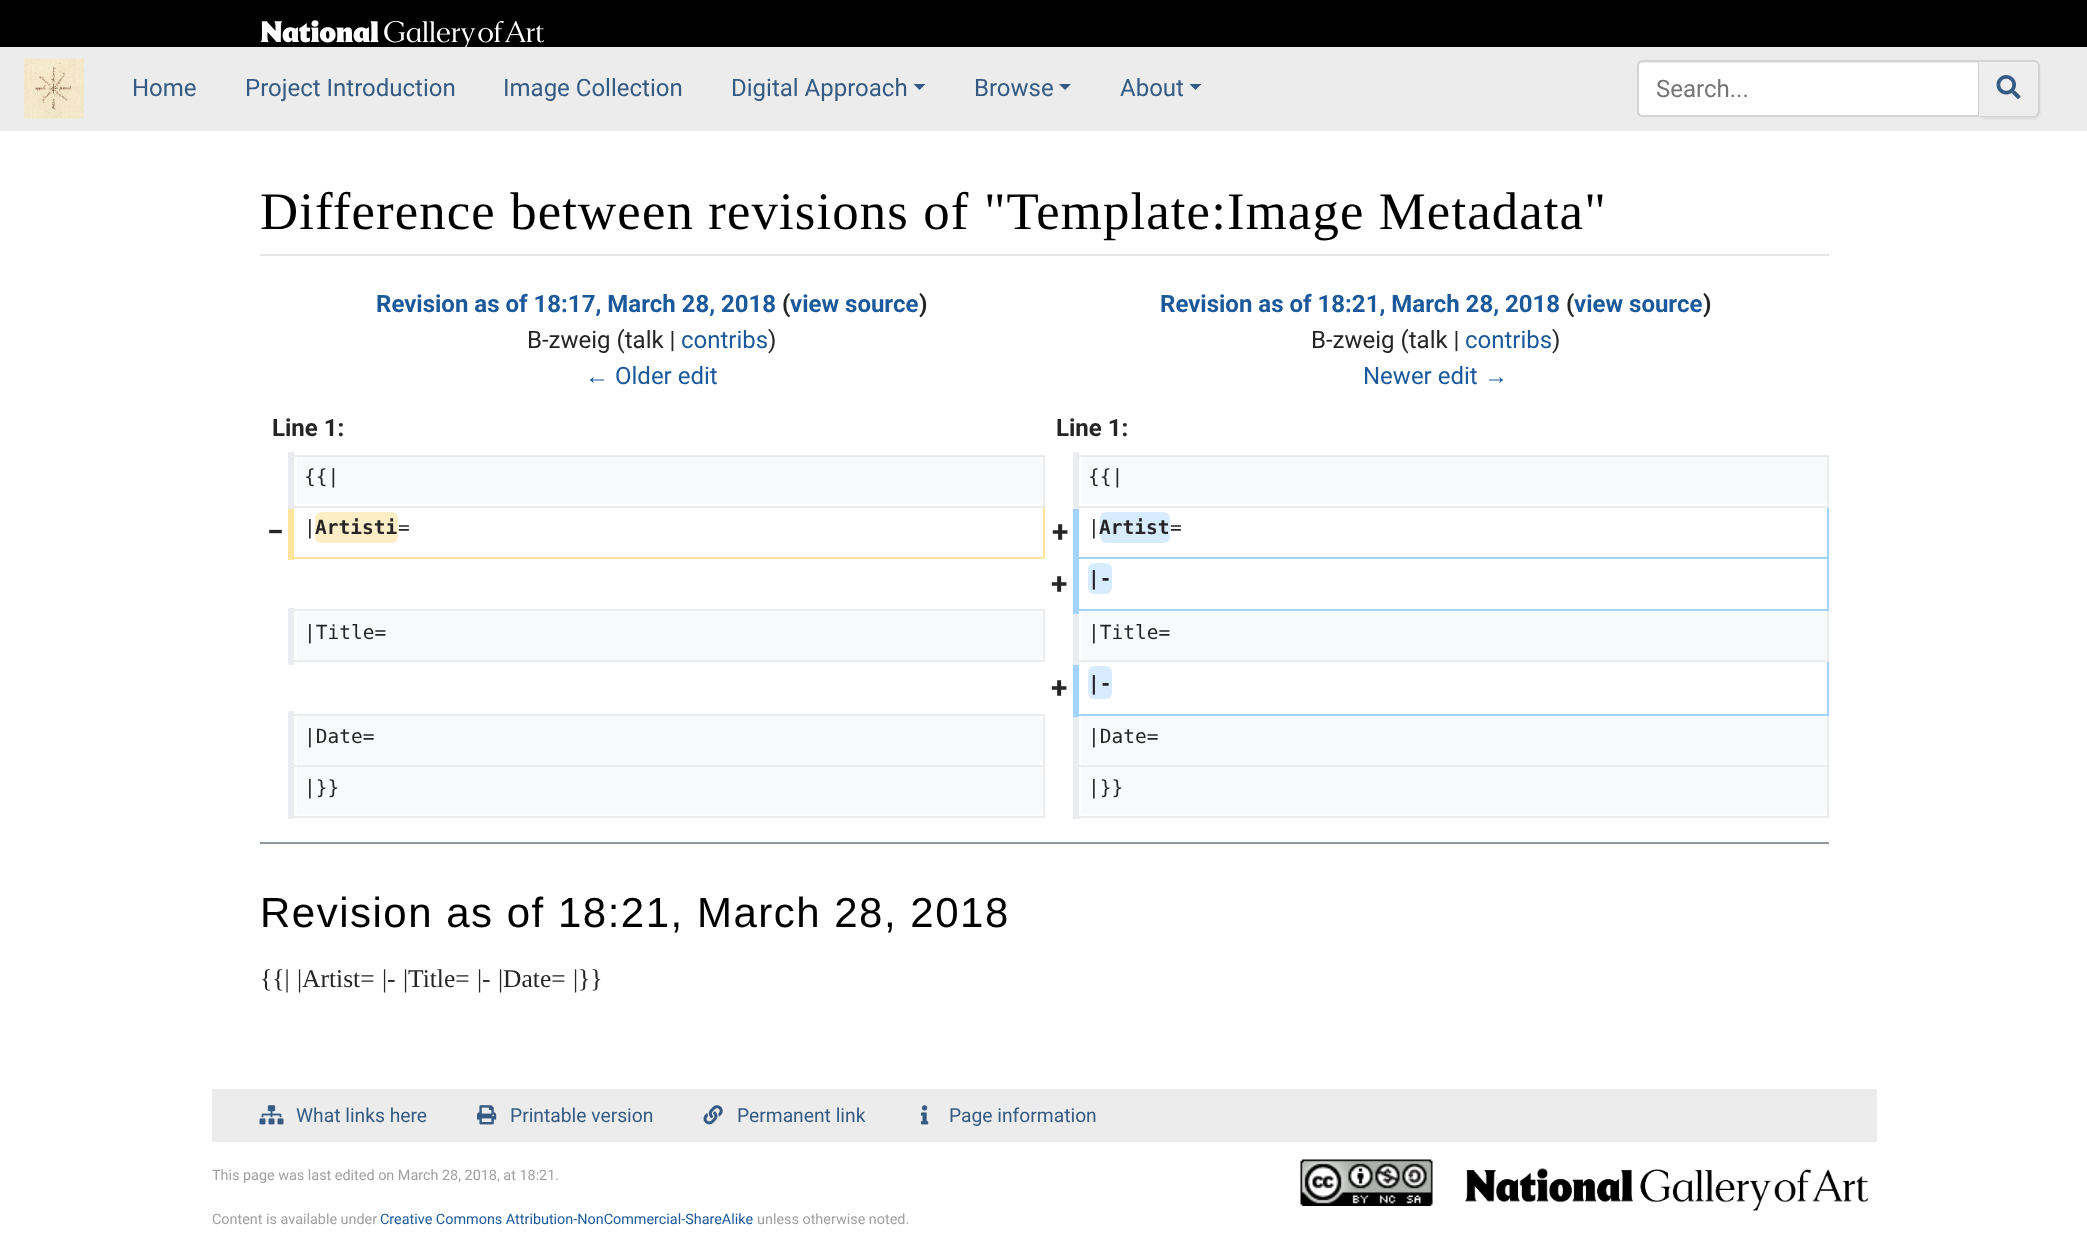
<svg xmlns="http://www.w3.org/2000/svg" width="2087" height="1252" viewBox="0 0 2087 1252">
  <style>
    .t1 { font: 24px Roboto; fill: #355b84; }
    .t2 { font: 24px Roboto; fill: #757575; }
    .t3 { font: 52.8px Liberation Serif; letter-spacing: 1.12px; fill: #000; }
    .t4 { font: bold 24px Roboto; fill: #1b599b; }
    .t5 { font: bold 24px Roboto; fill: #252525; }
    .t6 { font: 24px Roboto; fill: #252525; }
    .t7 { font: 24px Roboto; fill: #1b599b; }
    .t8 { font: 24px Liberation Sans; fill: #1b599b; }
    .t9 { font: 19.5px DejaVu Sans Mono; fill: #252525; }
    .t10 { font: bold 30px Roboto; fill: #252525; }
    .t11 { font: bold 19.5px DejaVu Sans Mono; fill: #252525; }
    .t12 { font: 42px Liberation Sans; letter-spacing: 1.5px; fill: #000; }
    .t13 { font: 25.5px Liberation Serif; fill: #252525; }
    .t14 { font: 19.25px Roboto; fill: #355b84; }
    .t15 { font: 14.4px Roboto; fill: #9fa19f; }
    .t16 { font: 14.4px Roboto; fill: #1b599b; }
  </style>
  <defs>
    <linearGradient id="g1" gradientUnits="userSpaceOnUse" x1="2009" y1="62" x2="2009" y2="116"><stop offset="0" stop-color="#efefef"/><stop offset="1" stop-color="#ececec"/></linearGradient>
  </defs>
  <rect width="100%" height="100%" fill="#fff"/>
  <rect x="0" y="0" width="2087" height="47" fill="#000"/>
  <image x="260" y="20" width="284" height="27" href="images/1.png"/>
  <rect x="0" y="47" width="2087" height="84" fill="#ececec"/>
  <image x="24" y="58" width="60" height="61" href="images/2.png"/>
  <text x="132" y="96" class="t1">Home</text>
  <text x="245" y="96" class="t1">Project Introduction</text>
  <text x="503" y="96" class="t1">Image Collection</text>
  <text x="731" y="96" class="t1">Digital Approach</text>
  <path d="M913.5 84H925.5L919.5 90Z" fill="#355b84"/>
  <text x="974" y="96" class="t1">Browse</text>
  <path d="M1059 84H1071L1065 90Z" fill="#355b84"/>
  <text x="1120" y="96" class="t1">About</text>
  <path d="M1189.5 84H1201.5L1195.5 90Z" fill="#355b84"/>
  <path d="M1643 62H1979V116H1643C1640 116 1638 114 1638 111V67C1638 64 1640 62 1643 62Z" fill="#fff"/>
  <path d="M1642 63H1978V116H1979V62H1643C1640 62 1638 65 1638 68C1638 65 1640 63 1642 63Z" fill="#00000012"/>
  <path d="M1643 61H1979V116H1643C1640 116 1638 114 1638 111V66C1638 63 1640 61 1643 61Z" fill="none" stroke="#d4d4d4" stroke-width="2"/>
  <text x="1656" y="97" class="t2">Search...</text>
  <rect x="1979" y="62" width="61" height="57" rx="6" fill="#00000012" filter="blur(1px)"/>
  <path d="M1979 62H2034C2037 62 2039 64 2039 67V111C2039 114 2037 116 2034 116H1979Z" fill="url(#g1)"/>
  <path d="M1979 62V63H2034C2036 63 2038 65 2038 68V112L2037 115C2038 114 2039 112 2039 111V67C2039 64 2037 62 2034 62Z" fill="#ffffff26"/>
  <path d="M1978 60H2034C2037 60 2040 63 2040 66V111C2040 114 2037 117 2034 117H1978ZM1978 62H2034C2036 62 2038 64 2038 66V111C2038 113 2036 116 2034 116H1978Z" fill="#d4d4d4" fill-rule="evenodd"/>
  <image x="1996" y="75" width="25" height="24" href="images/3.png"/>
  <rect x="260" y="254" width="1569" height="2" fill="#e6e6e6"/>
  <text x="260" y="229" class="t3">Difference between revisions of "Template:Image Metadata"</text>
  <text x="376" y="312" class="t4">Revision as of 18:17, March 28, 2018</text>
  <text x="782" y="312" class="t5">(</text>
  <text x="790" y="312" class="t4">view source</text>
  <text x="919" y="312" class="t5">)</text>
  <text x="527" y="348" class="t6">B-zweig (talk |</text>
  <text x="681" y="348" class="t7">contribs</text>
  <text x="768" y="348" class="t6">)</text>
  <text x="585" y="384" class="t8">←</text>
  <text x="615" y="384" class="t7">Older edit</text>
  <text x="1160" y="312" class="t4">Revision as of 18:21, March 28, 2018</text>
  <text x="1566" y="312" class="t5">(</text>
  <text x="1574" y="312" class="t4">view source</text>
  <text x="1703" y="312" class="t5">)</text>
  <text x="1311" y="348" class="t6">B-zweig (talk |</text>
  <text x="1465" y="348" class="t7">contribs</text>
  <text x="1552" y="348" class="t6">)</text>
  <text x="1363" y="384" class="t7">Newer edit</text>
  <text x="1484" y="384" class="t8">→</text>
  <text x="272" y="436" class="t5">Line 1:</text>
  <text x="1056" y="436" class="t5">Line 1:</text>
  <path d="M297 456H1038C1040 456 1042 458 1042 461V499C1042 502 1040 504 1038 504H297V499V461Z" fill="#f8f9fa"/>
  <rect x="290" y="455" width="754" height="2" fill="#eaecf0"/>
  <rect x="1043" y="506" width="2" height="52" fill="#ffe49c"/>
  <rect x="1043" y="455" width="2" height="52" fill="#eaecf0"/>
  <rect x="290" y="506" width="754" height="2" fill="#eaecf0"/>
  <rect x="290" y="557" width="754" height="2" fill="#ffe49c"/>
  <rect x="288" y="503" width="6" height="57" fill="#ffe49c"/>
  <rect x="288" y="452" width="6" height="57" fill="#eaecf0"/>
  <text x="304" y="483" class="t9">{{|</text>
  <path d="M1082 456H1822C1825 456 1827 458 1827 461V499C1827 502 1825 504 1822 504H1082V499V461Z" fill="#f8f9fa"/>
  <rect x="1074" y="455" width="755" height="2" fill="#eaecf0"/>
  <rect x="1074" y="557" width="755" height="2" fill="#a3d3ff"/>
  <path d="M1082 766H1822C1825 766 1827 769 1827 771V810C1827 812 1825 814 1822 814H1082V810V771Z" fill="#f8f9fa"/>
  <rect x="1074" y="765" width="755" height="2" fill="#eaecf0"/>
  <rect x="1827" y="714" width="2" height="104" fill="#eaecf0"/>
  <rect x="1827" y="660" width="2" height="56" fill="#a3d3ff"/>
  <rect x="1827" y="609" width="2" height="53" fill="#eaecf0"/>
  <rect x="1827" y="506" width="2" height="105" fill="#a3d3ff"/>
  <rect x="1827" y="455" width="2" height="52" fill="#eaecf0"/>
  <rect x="1074" y="506" width="755" height="2" fill="#eaecf0"/>
  <rect x="1074" y="609" width="755" height="2" fill="#a3d3ff"/>
  <rect x="1074" y="660" width="755" height="2" fill="#eaecf0"/>
  <rect x="1074" y="714" width="755" height="2" fill="#a3d3ff"/>
  <rect x="1074" y="816" width="755" height="2" fill="#eaecf0"/>
  <rect x="1073" y="711" width="6" height="108" fill="#eaecf0"/>
  <rect x="1073" y="659" width="6" height="58" fill="#a3d3ff"/>
  <rect x="1073" y="608" width="6" height="57" fill="#eaecf0"/>
  <rect x="1073" y="503" width="6" height="111" fill="#a3d3ff"/>
  <rect x="1073" y="452" width="6" height="57" fill="#eaecf0"/>
  <text x="1088" y="483" class="t9">{{|</text>
  <text x="267" y="542" class="t10">−</text>
  <text x="304" y="534" class="t9">|</text>
  <rect x="315" y="512" width="83" height="31" rx="6" fill="#feeec8"/>
  <text x="315" y="534" class="t11">Artisti</text>
  <text x="398" y="534" class="t9">=</text>
  <text x="1052" y="542" class="t10">+</text>
  <text x="1088" y="534" class="t9">|</text>
  <rect x="1100" y="512" width="70" height="31" rx="6" fill="#d8ecff"/>
  <text x="1099" y="534" class="t11">Artist</text>
  <text x="1170" y="534" class="t9">=</text>
  <text x="1051" y="594" class="t10">+</text>
  <rect x="1088" y="563" width="24" height="31" rx="6" fill="#d8ecff"/>
  <text x="1088" y="585" class="t11">|-</text>
  <path d="M297 612H1038C1040 612 1042 614 1042 617V655C1042 658 1040 660 1038 660H297V655V617Z" fill="#f8f9fa"/>
  <rect x="290" y="609" width="754" height="2" fill="#eaecf0"/>
  <rect x="1043" y="609" width="2" height="53" fill="#eaecf0"/>
  <rect x="290" y="660" width="754" height="2" fill="#eaecf0"/>
  <rect x="288" y="608" width="6" height="57" fill="#eaecf0"/>
  <text x="304" y="639" class="t9">|Title=</text>
  <path d="M1082 612H1822C1825 612 1827 614 1827 617V655C1827 658 1825 660 1822 660H1082V655V617Z" fill="#f8f9fa"/>
  <text x="1088" y="639" class="t9">|Title=</text>
  <text x="1051" y="698" class="t10">+</text>
  <rect x="1088" y="666" width="24" height="33" rx="6" fill="#d8ecff"/>
  <text x="1088" y="690" class="t11">|-</text>
  <path d="M297 716H1038C1040 716 1042 718 1042 720V759C1042 761 1040 764 1038 764H297V759V720Z" fill="#f8f9fa"/>
  <rect x="290" y="714" width="754" height="2" fill="#eaecf0"/>
  <path d="M297 766H1038C1040 766 1042 769 1042 771V810C1042 812 1040 814 1038 814H297V810V771Z" fill="#f8f9fa"/>
  <rect x="290" y="765" width="754" height="2" fill="#eaecf0"/>
  <rect x="1043" y="765" width="2" height="53" fill="#eaecf0"/>
  <rect x="1043" y="714" width="2" height="53" fill="#eaecf0"/>
  <text x="304" y="743" class="t9">|Date=</text>
  <path d="M1082 716H1822C1825 716 1827 718 1827 720V759C1827 761 1825 764 1822 764H1082V759V720Z" fill="#f8f9fa"/>
  <text x="1088" y="743" class="t9">|Date=</text>
  <rect x="290" y="816" width="754" height="2" fill="#eaecf0"/>
  <rect x="288" y="711" width="6" height="108" fill="#eaecf0"/>
  <text x="304" y="794" class="t9">|}}</text>
  <text x="1088" y="794" class="t9">|}}</text>
  <rect x="260" y="842" width="1569" height="2" fill="#92989f"/>
  <text x="260" y="927" class="t12">Revision as of 18:21, March 28, 2018</text>
  <text x="260" y="987" word-spacing="1" class="t13">{{| |Artist= |- |Title= |- |Date= |}}</text>
  <rect x="212" y="1089" width="1665" height="53" fill="#ececec"/>
  <image x="259" y="1105" width="25" height="20" href="images/4.png"/>
  <text x="296" y="1122" class="t14">What links here</text>
  <image x="477" y="1105" width="20" height="20" href="images/5.png"/>
  <text x="510" y="1122" class="t14">Printable version</text>
  <image x="703" y="1105" width="20" height="20" href="images/6.png"/>
  <text x="737" y="1122" class="t14">Permanent link</text>
  <image x="921" y="1105" width="8" height="20" href="images/7.png"/>
  <text x="949" y="1122" class="t14">Page information</text>
  <text x="212" y="1180" class="t15">This page was last edited on March 28, 2018, at 18:21.</text>
  <text x="212" y="1224" class="t15">Content is available under</text>
  <text x="380" y="1224" class="t16">Creative Commons Attribution-NonCommercial-ShareAlike</text>
  <text x="757" y="1224" class="t15">unless otherwise noted.</text>
  <image x="1300" y="1159" width="133" height="47" href="images/8.png"/>
  <image x="1465" y="1168" width="403" height="43" href="images/9.png"/>
</svg>
